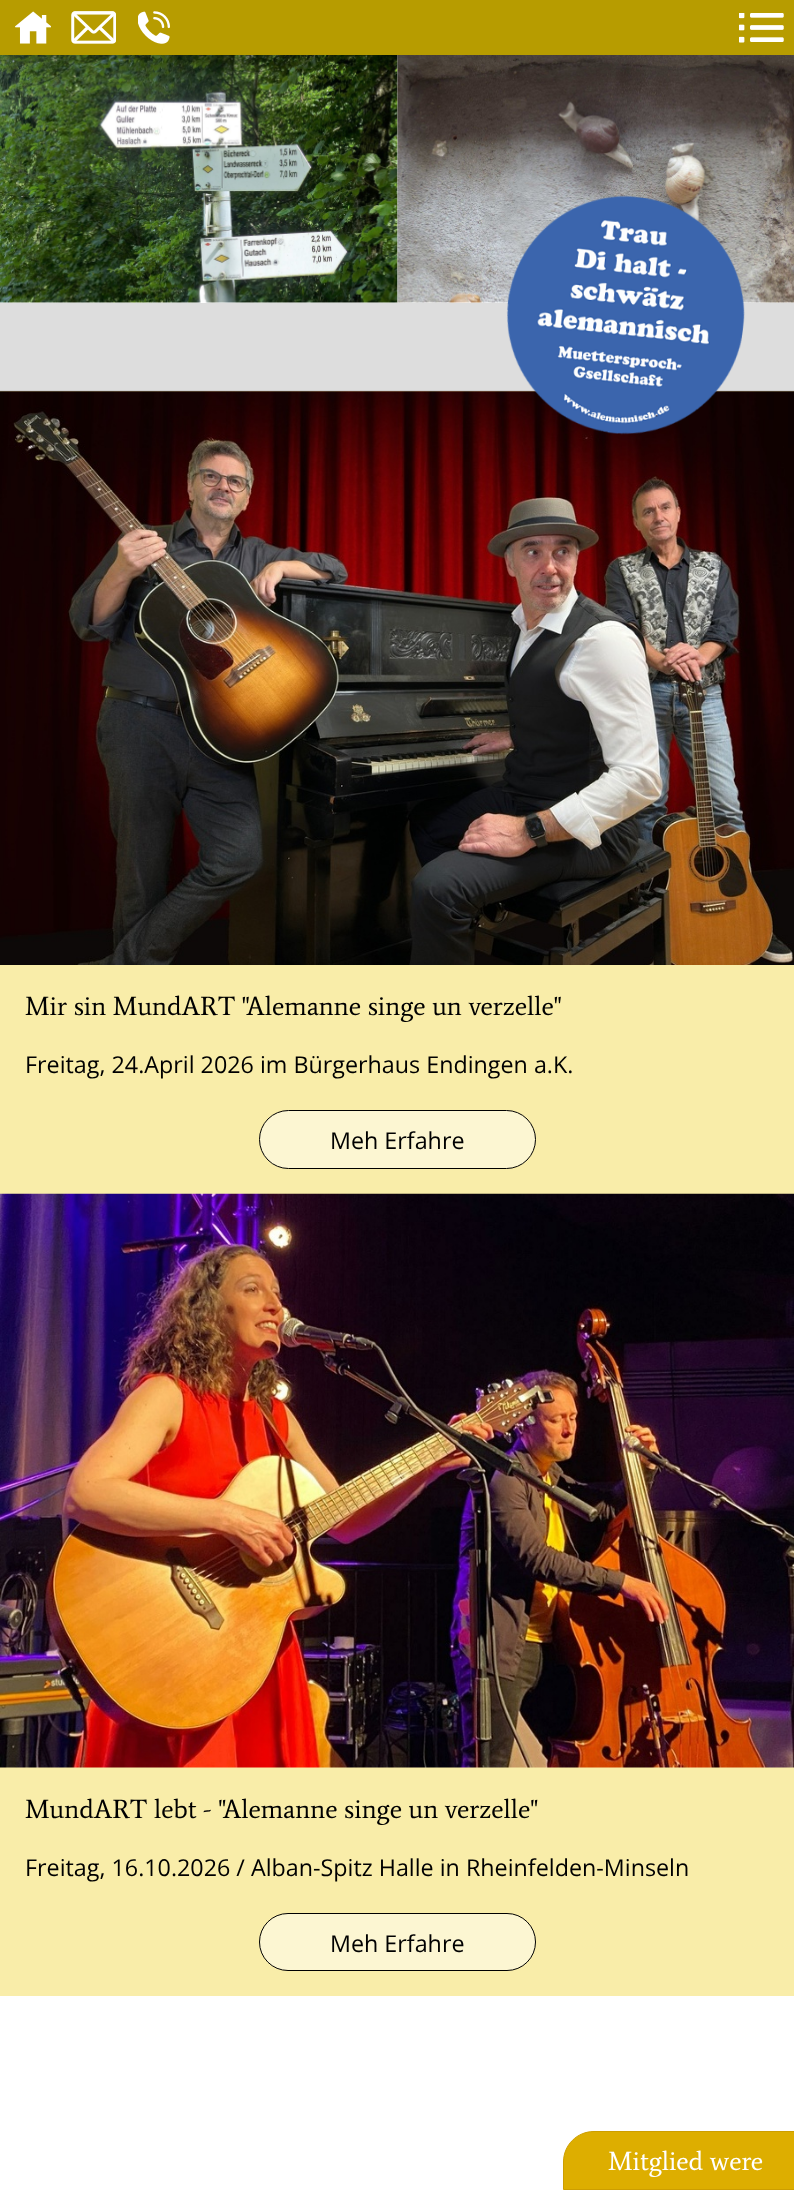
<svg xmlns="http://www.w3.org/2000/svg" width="794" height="2190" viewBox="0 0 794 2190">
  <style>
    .t1 { font: 26.7px Average; fill: #000; }
    .t2 { font: 23.3px Open Sans; fill: #000; }
    .t3 { font: 26.7px Average; fill: #fff; }
  </style>
  <rect width="100%" height="100%" fill="#fff"/>
  <image x="0" y="55" width="398" height="248" href="images/7.png"/>
  <image x="397" y="55" width="397" height="248" href="images/8.png"/>
  <rect x="4" y="11" width="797" height="48" fill="#0000004d" filter="blur(11px)"/>
  <rect x="0" y="0" width="794" height="55" fill="#b79c00"/>
  <image x="15" y="11" width="36" height="33" href="images/1.png"/>
  <image x="71" y="11" width="45" height="33" href="images/2.png"/>
  <image x="138" y="11" width="32" height="33" href="images/3.png"/>
  <image x="739" y="13" width="45" height="30" href="images/4.png"/>
  <rect x="0" y="391" width="794" height="803" fill="#f9eda9"/>
  <image x="0" y="391" width="794" height="574" href="images/5.png"/>
  <text x="25" y="1015" class="t1">Mir sin MundART "Alemanne singe un verzelle"</text>
  <text x="25" y="1073" class="t2">Freitag, 24.April 2026 im Bürgerhaus Endingen a.K.</text>
  <rect x="259.5" y="1110.5" width="276" height="58" rx="29" fill="#fcf6d2" stroke="#000"/>
  <text x="330" y="1149" class="t2">Meh Erfahre</text>
  <rect x="0" y="1767" width="794" height="229" fill="#f9eda9"/>
  <image x="0" y="1193" width="794" height="575" href="images/6.png"/>
  <text x="25" y="1818" class="t1">MundART lebt - "Alemanne singe un verzelle"</text>
  <text x="25" y="1876" class="t2">Freitag, 16.10.2026 / Alban-Spitz Halle in Rheinfelden-Minseln</text>
  <rect x="259.5" y="1913.5" width="276" height="57" rx="28.5" fill="#fcf6d2" stroke="#000"/>
  <text x="330" y="1952" class="t2">Meh Erfahre</text>
  <rect x="0" y="303" width="794" height="87" fill="#ddd"/>
  <rect x="0" y="390" width="794" height="1" fill="#d0d0d0"/>
  <image x="506" y="195" width="239" height="240" href="images/9.png"/>
  <path d="M594 2131.5H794.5V2189.5H563.5V2162C563.5 2145 577 2131.5 594 2131.5Z" fill="#ddae00" stroke="#cd9e00"/>
  <text x="608" y="2170" class="t3">Mitglied were</text>
</svg>
